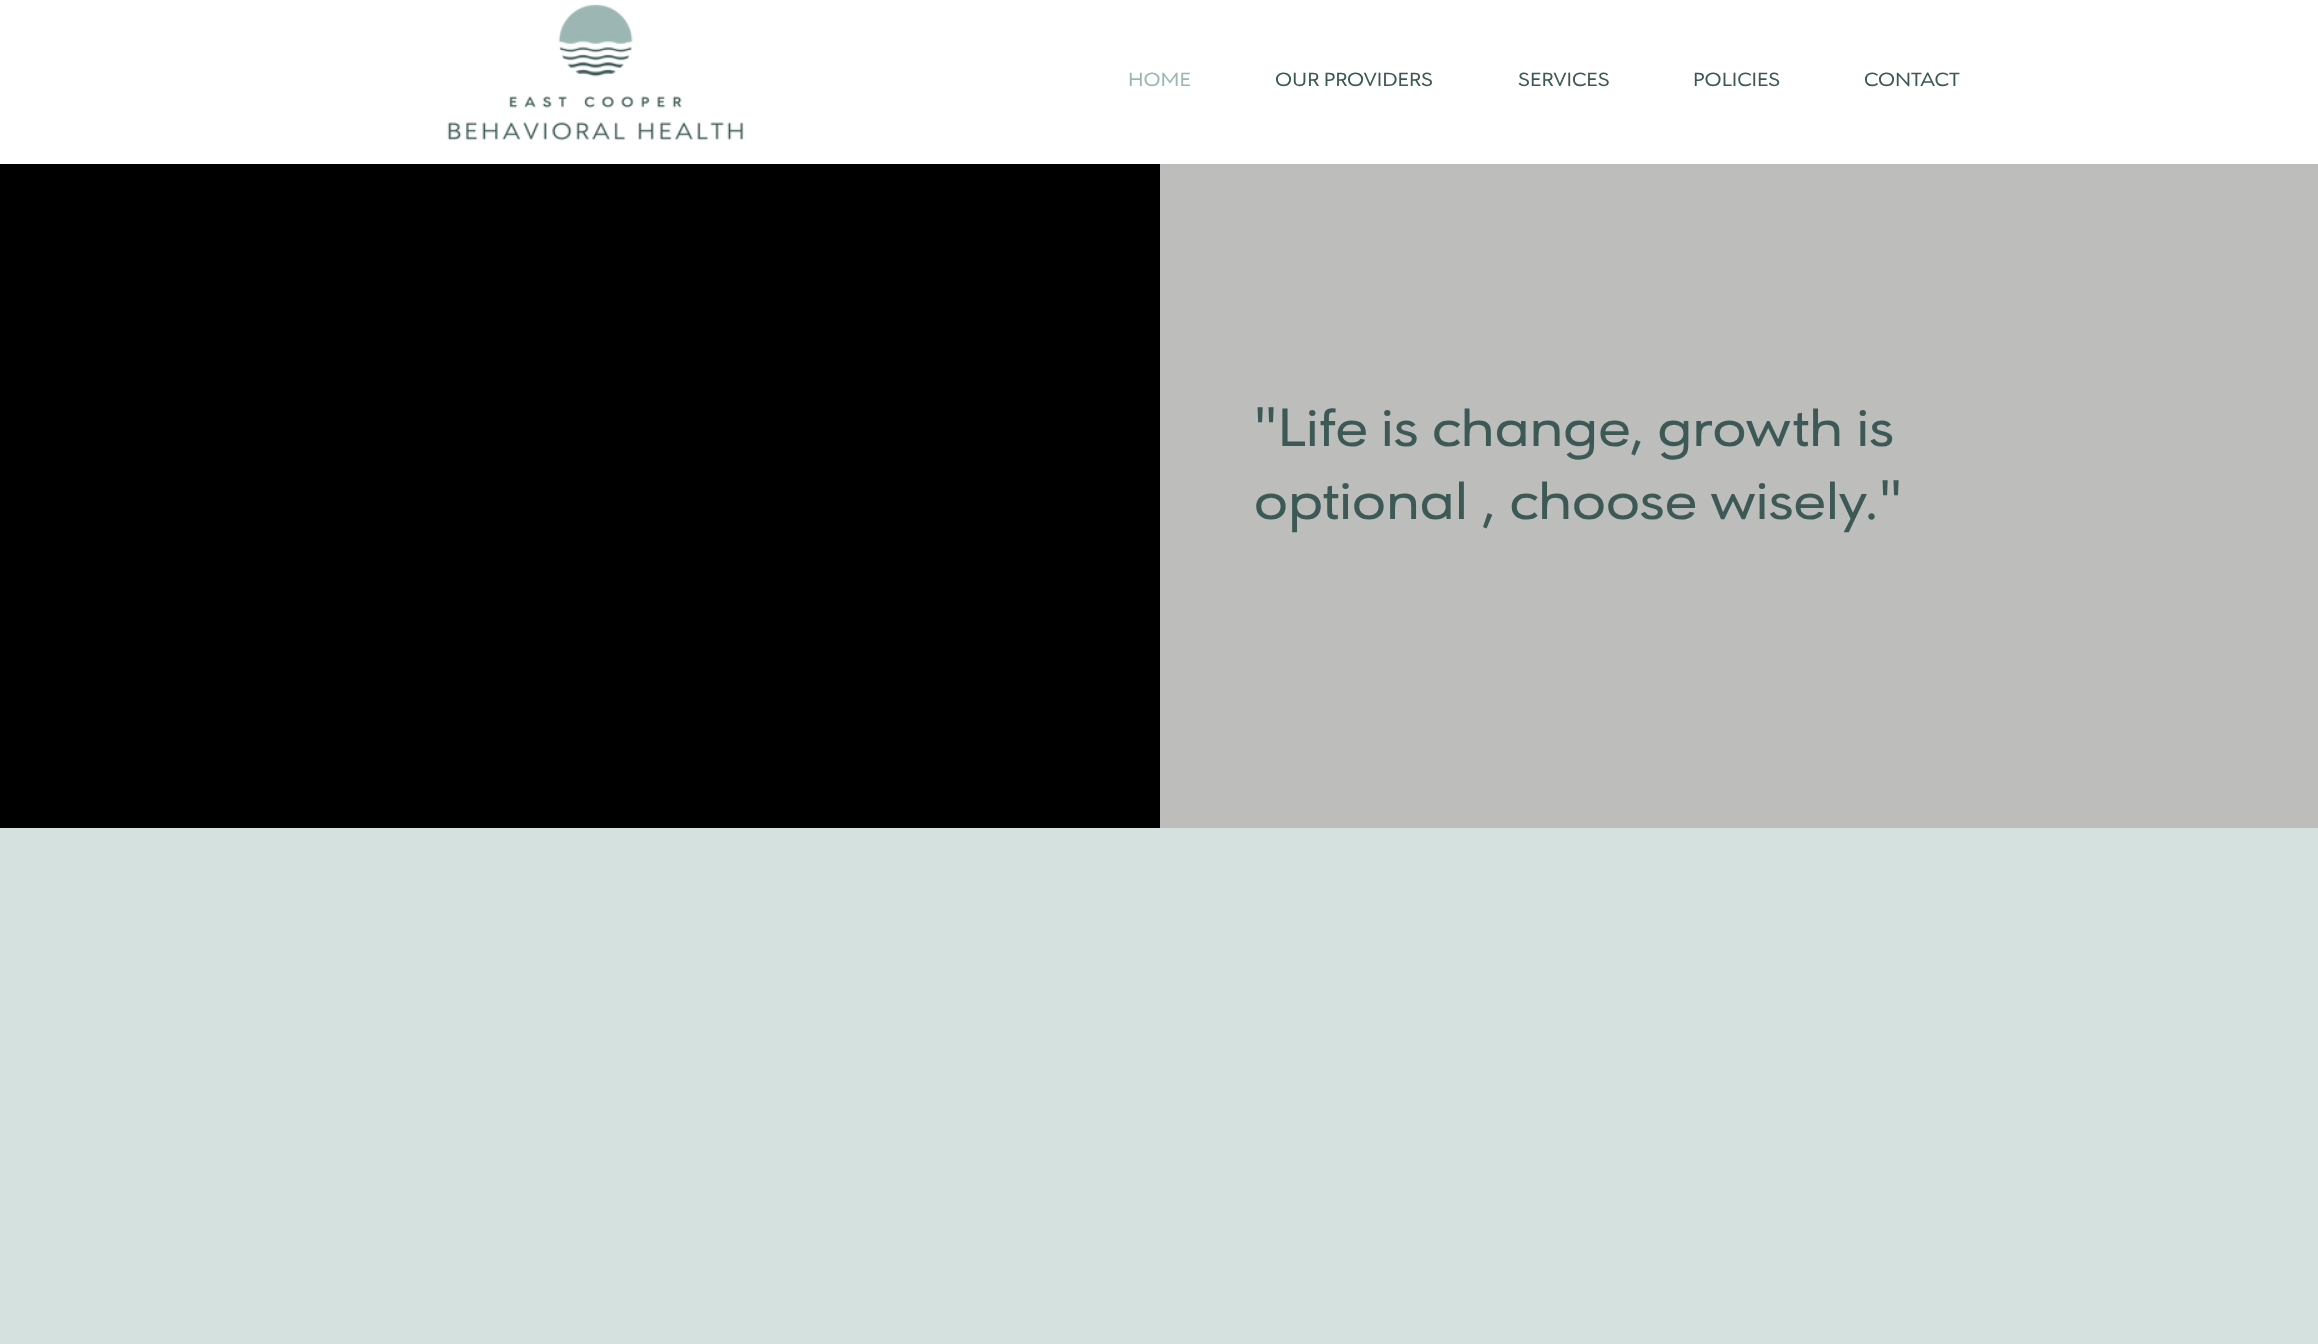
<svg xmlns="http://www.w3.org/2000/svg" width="2318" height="1344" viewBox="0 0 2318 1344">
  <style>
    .t1 { font: 500 20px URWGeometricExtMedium; fill: #9cb7b3; }
    .t2 { font: 500 20px URWGeometricExtMedium; fill: #3d5955; }
    .t3 { font: 500 56.25px URWGeometricExtMedium; fill: #3d5955; }
  </style>
  <rect width="100%" height="100%" fill="#fff"/>
  <image x="447" y="4" width="297" height="137" href="images/1.png"/>
  <text x="1128" y="86" class="t1">HOME</text>
  <text x="1275" y="86" class="t2">OUR PROVIDERS</text>
  <text x="1518" y="86" class="t2">SERVICES</text>
  <text x="1693" y="86" class="t2">POLICIES</text>
  <text x="1864" y="86" class="t2">CONTACT</text>
  <rect x="0" y="164" width="1160" height="664" fill="#000"/>
  <rect x="1160" y="164" width="1158" height="664" fill="#bdbdbc"/>
  <text x="1254" y="446" class="t3">"Life is change, growth is</text>
  <text x="1254" y="519" class="t3">optional , choose wisely."</text>
  <rect x="0" y="828" width="2318" height="516" fill="#d5e1df"/>
</svg>
